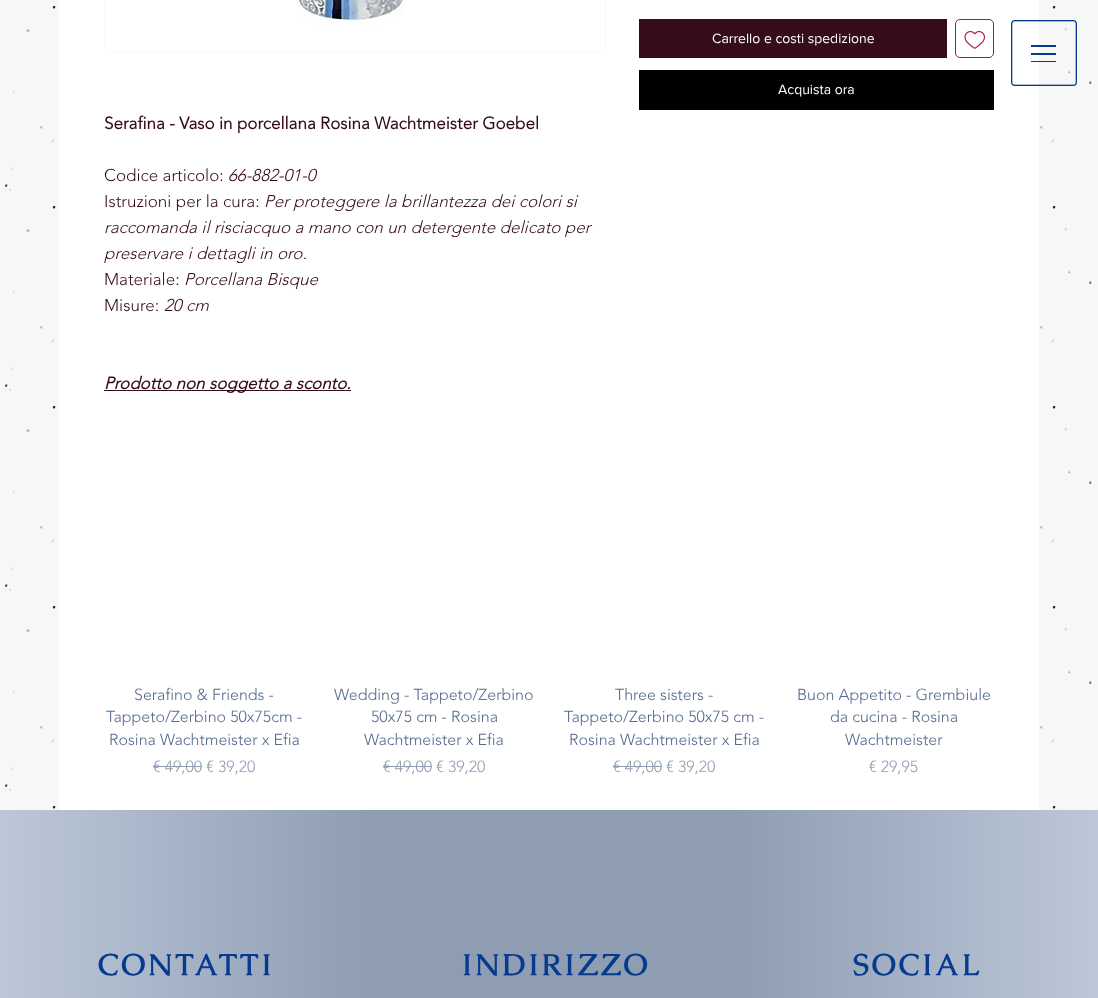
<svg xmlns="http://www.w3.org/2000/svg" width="1098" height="998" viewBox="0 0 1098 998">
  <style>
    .t1 { font: 14px 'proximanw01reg'; fill: #fff; }
    .t2 { font: bold 17px 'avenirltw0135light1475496'; fill: #350d18; }
    .t3 { font: 300 17px 'avenirltw0135light1475496'; fill: #350d18; }
    .t4 { font: italic 300 17px 'avenirltw0135light1475496'; fill: #350d18; }
    .t5 { font: italic bold 17px 'avenirltw0135light1475496'; fill: #350d18; }
    .t6 { font: 300 16px 'avenirltw0135light1475496'; fill: #556b8d; }
    .t7 { font: 300 16px 'avenirltw0135light1475496'; fill: #8f9db3; }
    .t8 { font: bold 30px Caudex; letter-spacing: 3px; fill: #053a8f; }
  </style>
  <defs>
    <linearGradient id="g1" gradientUnits="userSpaceOnUse" x1="0" y1="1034" x2="373" y2="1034"><stop offset="0" stop-color="#bcc8d9"/><stop offset="1" stop-color="#8f9db3"/></linearGradient>
    <linearGradient id="g2" gradientUnits="userSpaceOnUse" x1="735" y1="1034" x2="1098" y2="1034"><stop offset="0" stop-color="#8f9db3"/><stop offset="1" stop-color="#bcc8d9"/></linearGradient>
  </defs>
  <rect width="100%" height="100%" fill="#f7f7f7"/>
  <image x="5" y="5" width="1087" height="804" href="images/1.png"/>
  <rect x="59" y="0" width="980" height="810" fill="#fff"/>
  <rect x="639" y="19" width="308" height="39" fill="#350d18"/>
  <text x="712" y="43" class="t1">Carrello e costi spedizione</text>
  <rect x="955.5" y="19.5" width="38" height="38" rx="4.5" fill="none" stroke="#ac163f"/>
  <image x="964" y="31" width="21" height="18" href="images/2.png"/>
  <rect x="639" y="70" width="355" height="40" fill="#000"/>
  <text x="778" y="94" class="t1">Acquista ora</text>
  <rect x="104.5" y="-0.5" width="501" height="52" fill="none" stroke="#f9f9f9"/>
  <image x="297" y="0" width="108" height="25" href="images/3.png"/>
  <text x="104" y="129" class="t2">Serafina - Vaso in porcellana Rosina Wachtmeister Goebel</text>
  <text x="104" y="181" class="t3">Codice articolo:</text>
  <text x="228" y="181" class="t4">66-882-01-0</text>
  <text x="104" y="207" class="t3">Istruzioni per la cura:</text>
  <text x="264" y="207" class="t4">Per proteggere la brillantezza dei colori si</text>
  <text x="104" y="233" class="t4">raccomanda il risciacquo a mano con un detergente delicato per</text>
  <text x="104" y="259" class="t4">preservare i dettagli in oro.</text>
  <text x="104" y="285" class="t3">Materiale:</text>
  <text x="184" y="285" class="t4">Porcellana Bisque</text>
  <text x="104" y="311" class="t3">Misure:</text>
  <text x="164" y="311" class="t4">20 cm</text>
  <rect x="104" y="390" width="247" height="1" fill="#350d18"/>
  <text x="104" y="389" class="t5">Prodotto non soggetto a sconto.</text>
  <text x="134" y="700" class="t6">Serafino &amp; Friends -</text>
  <text x="106" y="722" class="t6">Tappeto/Zerbino 50x75cm -</text>
  <text x="109" y="745" class="t6">Rosina Wachtmeister x Efia</text>
  <text x="153" y="772" class="t7">€ 49,00 € 39,20</text>
  <rect x="153" y="766" width="49" height="1" fill="#8f9db3"/>
  <text x="334" y="700" class="t6">Wedding - Tappeto/Zerbino</text>
  <text x="371" y="722" class="t6">50x75 cm - Rosina</text>
  <text x="364" y="745" class="t6">Wachtmeister x Efia</text>
  <text x="383" y="772" class="t7">€ 49,00 € 39,20</text>
  <rect x="383" y="766" width="49" height="1" fill="#8f9db3"/>
  <text x="615" y="700" class="t6">Three sisters -</text>
  <text x="564" y="722" class="t6">Tappeto/Zerbino 50x75 cm -</text>
  <text x="569" y="745" class="t6">Rosina Wachtmeister x Efia</text>
  <text x="613" y="772" class="t7">€ 49,00 € 39,20</text>
  <rect x="613" y="766" width="49" height="1" fill="#8f9db3"/>
  <text x="797" y="700" class="t6">Buon Appetito - Grembiule</text>
  <text x="830" y="722" class="t6">da cucina - Rosina</text>
  <text x="845" y="745" class="t6">Wachtmeister</text>
  <text x="869" y="772" class="t7">€ 29,95</text>
  <rect x="0" y="810" width="373" height="188" fill="url(#g1)"/>
  <text x="98" y="975" class="t8">CONTATTI</text>
  <rect x="373" y="810" width="362" height="188" fill="#8f9db3"/>
  <text x="462" y="975" class="t8">INDIRIZZO</text>
  <rect x="735" y="810" width="363" height="188" fill="url(#g2)"/>
  <text x="853" y="975" class="t8">SOCIAL</text>
  <image x="1011" y="20" width="66" height="66" href="images/4.png"/>
</svg>
